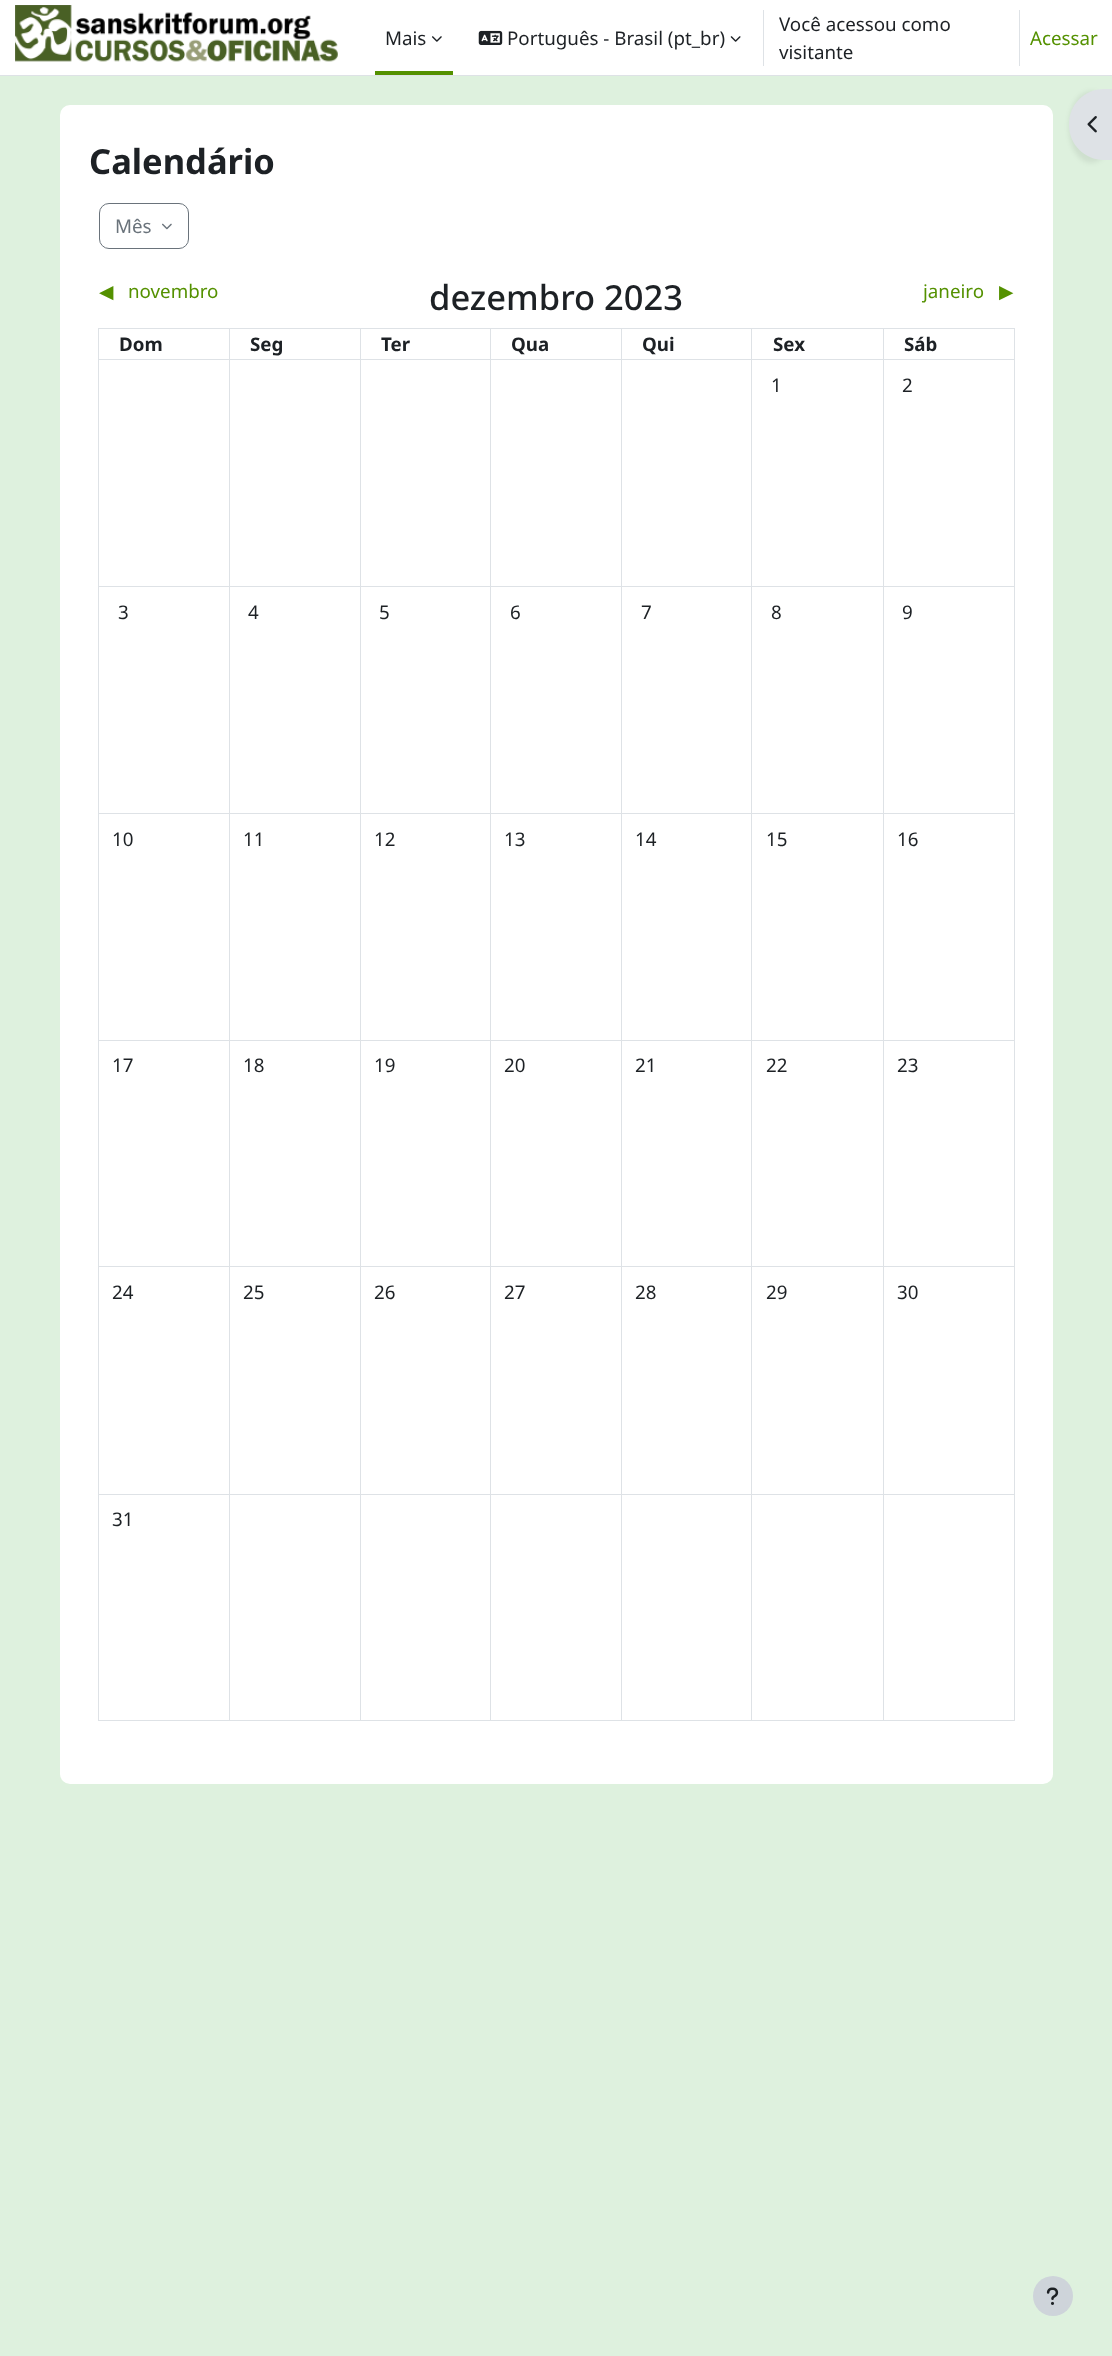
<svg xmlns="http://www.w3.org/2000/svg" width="1112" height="2356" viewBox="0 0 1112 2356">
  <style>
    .t1 { font: 18.75px Noto Sans; fill: #1d2125; }
    .t2 { font: 18.75px Noto Sans; fill: #549100; }
    .t3 { font: bold 34.5px Noto Sans; fill: #1d2125; }
    .t4 { font: 18.75px Noto Sans; fill: #6a737b; }
    .t5 { font: 18.75px DejaVu Sans; fill: #549100; }
    .t6 { font: 500 34.5px Noto Sans; fill: #1d2125; }
    .t7 { font: bold 18.75px Noto Sans; fill: #1d2125; }
  </style>
  <rect width="100%" height="100%" fill="#def1de"/>
  <rect x="0" y="0" width="1112" height="75" fill="#fff"/>
  <rect x="0" y="75" width="1112" height="1" fill="#dee2e6"/>
  <image x="15" y="5" width="323" height="57" href="images/1.png"/>
  <rect x="375" y="71" width="78" height="4" fill="#549100"/>
  <text x="385" y="45" class="t1">Mais</text>
  <image x="432" y="36" width="10" height="6" href="images/2.png"/>
  <image x="478" y="30" width="25" height="15" href="images/3.png"/>
  <text x="507" y="45" class="t1">Português - Brasil (pt_br)</text>
  <image x="730" y="36" width="11" height="6" href="images/4.png"/>
  <rect x="763" y="10" width="1" height="56" fill="#dee2e6"/>
  <text x="779" y="31" class="t1">Você acessou como</text>
  <rect x="1019" y="10" width="1" height="56" fill="#dee2e6"/>
  <text x="1030" y="45" class="t2">Acessar</text>
  <text x="779" y="59" class="t1">visitante</text>
  <rect x="60" y="105" width="993" height="1679" rx="10" fill="#fff"/>
  <text x="89" y="174" class="t3">Calendário</text>
  <rect x="1069" y="91" width="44" height="72" rx="35" fill="#00000012" filter="blur(2.5px)"/>
  <path d="M1104 89H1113V160H1104C1084.5 160 1069 144.5 1069 125V124C1069 104.5 1084.5 89 1104 89Z" fill="#dee2e6"/>
  <image x="1087" y="116" width="10" height="17" href="images/5.png"/>
  <rect x="99.5" y="203.5" width="89" height="45" rx="9.5" fill="none" stroke="#6a737b"/>
  <text x="115" y="233" class="t4">Mês</text>
  <image x="162" y="223" width="10" height="7" href="images/6.png"/>
  <text x="99" y="298" class="t5">◀︎</text>
  <text x="128" y="298" class="t2">novembro</text>
  <text x="429" y="310" class="t6">dezembro 2023</text>
  <text x="923" y="298" class="t2">janeiro</text>
  <text x="999" y="298" class="t5">▶︎</text>
  <rect x="883" y="328" width="132" height="1" fill="#dee2e6"/>
  <rect x="883" y="359" width="132" height="1" fill="#dee2e6"/>
  <rect x="883" y="586" width="132" height="1" fill="#dee2e6"/>
  <rect x="883" y="813" width="132" height="1" fill="#dee2e6"/>
  <rect x="883" y="1040" width="132" height="1" fill="#dee2e6"/>
  <rect x="883" y="1266" width="132" height="1" fill="#dee2e6"/>
  <rect x="883" y="1494" width="132" height="1" fill="#dee2e6"/>
  <rect x="1014" y="1494" width="1" height="227" fill="#dee2e6"/>
  <rect x="883" y="1720" width="132" height="1" fill="#dee2e6"/>
  <rect x="883" y="1494" width="1" height="227" fill="#dee2e6"/>
  <rect x="751" y="1494" width="133" height="1" fill="#dee2e6"/>
  <rect x="883" y="1266" width="1" height="229" fill="#dee2e6"/>
  <rect x="751" y="1266" width="133" height="1" fill="#dee2e6"/>
  <rect x="883" y="1040" width="1" height="228" fill="#dee2e6"/>
  <rect x="751" y="1040" width="133" height="1" fill="#dee2e6"/>
  <rect x="883" y="813" width="1" height="228" fill="#dee2e6"/>
  <rect x="751" y="813" width="133" height="1" fill="#dee2e6"/>
  <rect x="883" y="586" width="1" height="228" fill="#dee2e6"/>
  <rect x="751" y="586" width="133" height="1" fill="#dee2e6"/>
  <rect x="883" y="359" width="1" height="229" fill="#dee2e6"/>
  <rect x="751" y="359" width="133" height="1" fill="#dee2e6"/>
  <rect x="883" y="328" width="1" height="32" fill="#dee2e6"/>
  <rect x="751" y="328" width="133" height="1" fill="#dee2e6"/>
  <rect x="751" y="1720" width="133" height="1" fill="#dee2e6"/>
  <rect x="751" y="1494" width="1" height="227" fill="#dee2e6"/>
  <rect x="621" y="1494" width="132" height="1" fill="#dee2e6"/>
  <rect x="751" y="1266" width="1" height="229" fill="#dee2e6"/>
  <rect x="621" y="1266" width="132" height="1" fill="#dee2e6"/>
  <rect x="751" y="1040" width="1" height="228" fill="#dee2e6"/>
  <rect x="621" y="1040" width="132" height="1" fill="#dee2e6"/>
  <rect x="751" y="813" width="1" height="228" fill="#dee2e6"/>
  <rect x="621" y="813" width="132" height="1" fill="#dee2e6"/>
  <rect x="751" y="586" width="1" height="228" fill="#dee2e6"/>
  <rect x="621" y="586" width="132" height="1" fill="#dee2e6"/>
  <rect x="751" y="359" width="1" height="229" fill="#dee2e6"/>
  <rect x="621" y="359" width="132" height="1" fill="#dee2e6"/>
  <rect x="751" y="328" width="1" height="32" fill="#dee2e6"/>
  <rect x="621" y="328" width="132" height="1" fill="#dee2e6"/>
  <rect x="621" y="1720" width="132" height="1" fill="#dee2e6"/>
  <rect x="621" y="1494" width="1" height="227" fill="#dee2e6"/>
  <rect x="490" y="1494" width="133" height="1" fill="#dee2e6"/>
  <rect x="621" y="1266" width="1" height="229" fill="#dee2e6"/>
  <rect x="490" y="1266" width="133" height="1" fill="#dee2e6"/>
  <rect x="621" y="1040" width="1" height="228" fill="#dee2e6"/>
  <rect x="490" y="1040" width="133" height="1" fill="#dee2e6"/>
  <rect x="621" y="813" width="1" height="228" fill="#dee2e6"/>
  <rect x="490" y="813" width="133" height="1" fill="#dee2e6"/>
  <rect x="621" y="586" width="1" height="228" fill="#dee2e6"/>
  <rect x="490" y="586" width="133" height="1" fill="#dee2e6"/>
  <rect x="621" y="359" width="1" height="229" fill="#dee2e6"/>
  <rect x="490" y="359" width="133" height="1" fill="#dee2e6"/>
  <rect x="621" y="328" width="1" height="32" fill="#dee2e6"/>
  <rect x="490" y="328" width="133" height="1" fill="#dee2e6"/>
  <rect x="490" y="1720" width="133" height="1" fill="#dee2e6"/>
  <rect x="490" y="1494" width="1" height="227" fill="#dee2e6"/>
  <rect x="360" y="1494" width="131" height="1" fill="#dee2e6"/>
  <rect x="490" y="1266" width="1" height="229" fill="#dee2e6"/>
  <rect x="360" y="1266" width="131" height="1" fill="#dee2e6"/>
  <rect x="490" y="1040" width="1" height="228" fill="#dee2e6"/>
  <rect x="360" y="1040" width="131" height="1" fill="#dee2e6"/>
  <rect x="490" y="813" width="1" height="228" fill="#dee2e6"/>
  <rect x="360" y="813" width="131" height="1" fill="#dee2e6"/>
  <rect x="490" y="586" width="1" height="228" fill="#dee2e6"/>
  <rect x="360" y="586" width="131" height="1" fill="#dee2e6"/>
  <rect x="490" y="359" width="1" height="229" fill="#dee2e6"/>
  <rect x="360" y="359" width="131" height="1" fill="#dee2e6"/>
  <rect x="490" y="328" width="1" height="32" fill="#dee2e6"/>
  <rect x="360" y="328" width="131" height="1" fill="#dee2e6"/>
  <rect x="360" y="1720" width="131" height="1" fill="#dee2e6"/>
  <rect x="360" y="1494" width="1" height="227" fill="#dee2e6"/>
  <rect x="229" y="1494" width="132" height="1" fill="#dee2e6"/>
  <rect x="360" y="1266" width="1" height="229" fill="#dee2e6"/>
  <rect x="229" y="1266" width="132" height="1" fill="#dee2e6"/>
  <rect x="360" y="1040" width="1" height="228" fill="#dee2e6"/>
  <rect x="229" y="1040" width="132" height="1" fill="#dee2e6"/>
  <rect x="360" y="813" width="1" height="228" fill="#dee2e6"/>
  <rect x="229" y="813" width="132" height="1" fill="#dee2e6"/>
  <rect x="360" y="586" width="1" height="228" fill="#dee2e6"/>
  <rect x="229" y="586" width="132" height="1" fill="#dee2e6"/>
  <rect x="360" y="359" width="1" height="229" fill="#dee2e6"/>
  <rect x="229" y="359" width="132" height="1" fill="#dee2e6"/>
  <rect x="360" y="328" width="1" height="32" fill="#dee2e6"/>
  <rect x="229" y="328" width="132" height="1" fill="#dee2e6"/>
  <rect x="229" y="1720" width="132" height="1" fill="#dee2e6"/>
  <rect x="229" y="1494" width="1" height="227" fill="#dee2e6"/>
  <rect x="98" y="1494" width="132" height="1" fill="#dee2e6"/>
  <rect x="229" y="1266" width="1" height="229" fill="#dee2e6"/>
  <rect x="98" y="1266" width="132" height="1" fill="#dee2e6"/>
  <rect x="229" y="1040" width="1" height="228" fill="#dee2e6"/>
  <rect x="98" y="1040" width="132" height="1" fill="#dee2e6"/>
  <rect x="229" y="813" width="1" height="228" fill="#dee2e6"/>
  <rect x="98" y="813" width="132" height="1" fill="#dee2e6"/>
  <rect x="229" y="586" width="1" height="228" fill="#dee2e6"/>
  <rect x="98" y="586" width="132" height="1" fill="#dee2e6"/>
  <rect x="229" y="359" width="1" height="229" fill="#dee2e6"/>
  <rect x="98" y="359" width="132" height="1" fill="#dee2e6"/>
  <rect x="229" y="328" width="1" height="32" fill="#dee2e6"/>
  <rect x="98" y="328" width="132" height="1" fill="#dee2e6"/>
  <rect x="98" y="1720" width="132" height="1" fill="#dee2e6"/>
  <rect x="98" y="1494" width="1" height="227" fill="#dee2e6"/>
  <rect x="98" y="1266" width="1" height="229" fill="#dee2e6"/>
  <rect x="98" y="1040" width="1" height="228" fill="#dee2e6"/>
  <rect x="98" y="813" width="1" height="228" fill="#dee2e6"/>
  <rect x="98" y="586" width="1" height="228" fill="#dee2e6"/>
  <rect x="98" y="359" width="1" height="229" fill="#dee2e6"/>
  <rect x="98" y="328" width="1" height="32" fill="#dee2e6"/>
  <text x="119" y="351" class="t7">Dom</text>
  <text x="250" y="351" class="t7">Seg</text>
  <text x="381" y="351" class="t7">Ter</text>
  <text x="511" y="351" class="t7">Qua</text>
  <text x="642" y="351" class="t7">Qui</text>
  <text x="773" y="351" class="t7">Sex</text>
  <rect x="1014" y="1266" width="1" height="229" fill="#dee2e6"/>
  <rect x="1014" y="1040" width="1" height="228" fill="#dee2e6"/>
  <rect x="1014" y="813" width="1" height="228" fill="#dee2e6"/>
  <rect x="1014" y="586" width="1" height="228" fill="#dee2e6"/>
  <rect x="1014" y="359" width="1" height="229" fill="#dee2e6"/>
  <rect x="1014" y="328" width="1" height="32" fill="#dee2e6"/>
  <text x="904" y="351" class="t7">Sáb</text>
  <text x="771" y="392" class="t1">1</text>
  <text x="902" y="392" class="t1">2</text>
  <text x="118" y="619" class="t1">3</text>
  <text x="248" y="619" class="t1">4</text>
  <text x="379" y="619" class="t1">5</text>
  <text x="510" y="619" class="t1">6</text>
  <text x="641" y="619" class="t1">7</text>
  <text x="771" y="619" class="t1">8</text>
  <text x="902" y="619" class="t1">9</text>
  <text x="112" y="846" class="t1">10</text>
  <text x="243" y="846" class="t1">11</text>
  <text x="374" y="846" class="t1">12</text>
  <text x="504" y="846" class="t1">13</text>
  <text x="635" y="846" class="t1">14</text>
  <text x="766" y="846" class="t1">15</text>
  <text x="897" y="846" class="t1">16</text>
  <text x="112" y="1072" class="t1">17</text>
  <text x="243" y="1072" class="t1">18</text>
  <text x="374" y="1072" class="t1">19</text>
  <text x="504" y="1072" class="t1">20</text>
  <text x="635" y="1072" class="t1">21</text>
  <text x="766" y="1072" class="t1">22</text>
  <text x="897" y="1072" class="t1">23</text>
  <text x="112" y="1299" class="t1">24</text>
  <text x="243" y="1299" class="t1">25</text>
  <text x="374" y="1299" class="t1">26</text>
  <text x="504" y="1299" class="t1">27</text>
  <text x="635" y="1299" class="t1">28</text>
  <text x="766" y="1299" class="t1">29</text>
  <text x="897" y="1299" class="t1">30</text>
  <text x="112" y="1526" class="t1">31</text>
  <circle cx="1053" cy="2296" r="20" fill="#ced4da"/>
  <image x="1046" y="2287" width="13" height="18" href="images/7.png"/>
</svg>
